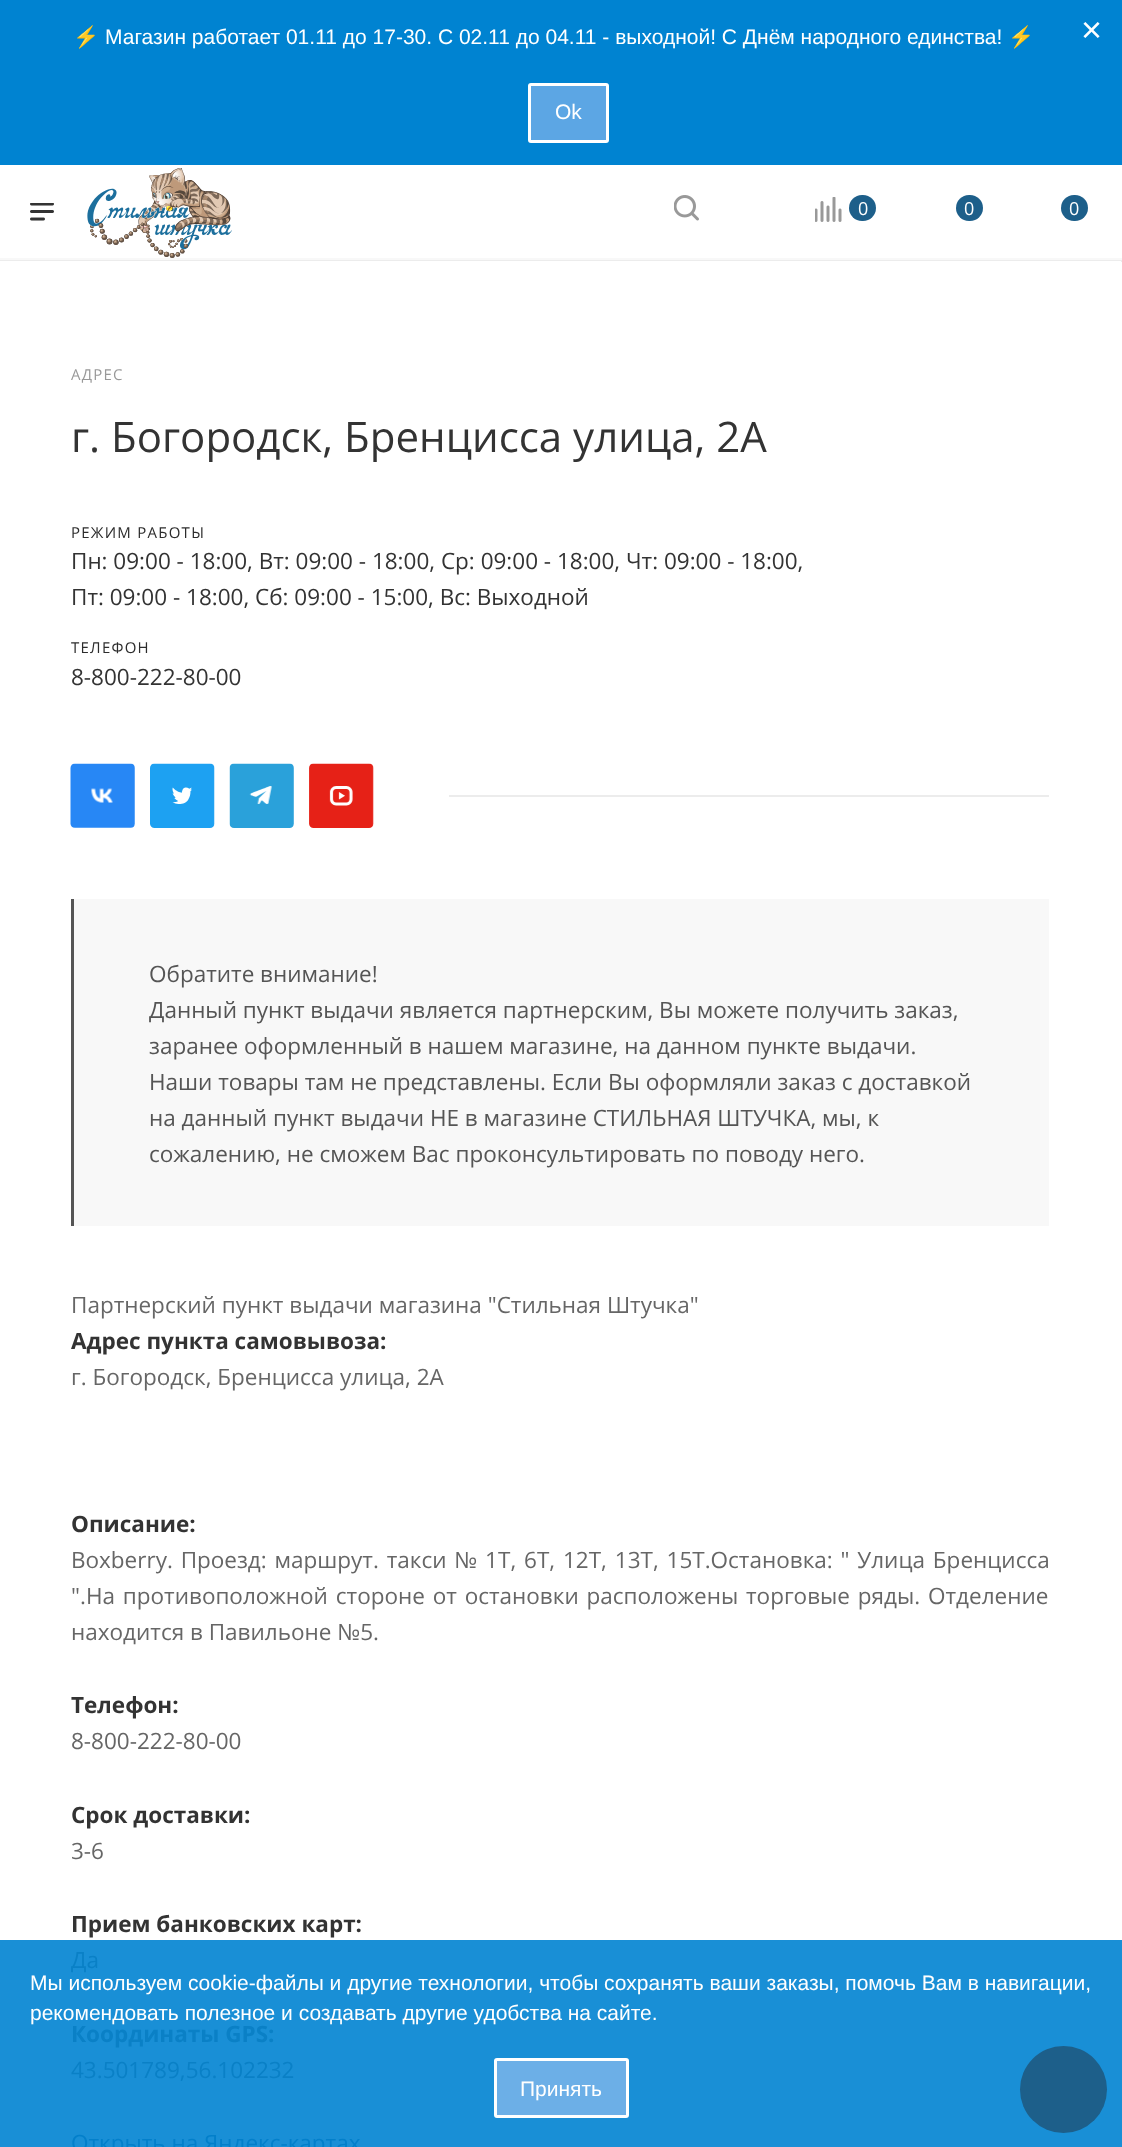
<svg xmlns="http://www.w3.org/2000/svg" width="1122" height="2147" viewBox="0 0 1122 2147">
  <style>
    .t1 { font: 21px Noto Color Emoji; fill: #fff; }
    .t2 { font: 21px Liberation Sans; fill: #fff; }
    .t3 { font: 36px Liberation Sans; fill: #fff; }
    .t4 { font: 18px Open Sans; fill: #fff; }
    .t5 { font: 15px Open Sans; letter-spacing: 1.25px; fill: #999; }
    .t6 { font: 42px Open Sans; fill: #333; }
    .t7 { font: 15px Open Sans; letter-spacing: 1.25px; fill: #2c2c2c; }
    .t8 { font: 22.5px Open Sans; fill: #333; }
    .t9 { font: 22.5px Open Sans; fill: #555; }
    .t10 { font: 22.5px Open Sans; fill: #666; }
    .t11 { font: bold 22.5px Open Sans; fill: #333; }
    .t12 { font: 22.5px Open Sans; fill: #0a80c6; }
    .t13 { font: bold 22.5px Open Sans; fill: #0a80c6; }
    .t14 { font: 22.5px Open Sans; fill: #037fca; }
  </style>
  <rect width="100%" height="100%" fill="#fff"/>
  <rect x="0" y="1940" width="1122" height="207" fill="#198fd6"/>
  <rect x="0" y="0" width="1122" height="165" fill="#0083d1"/>
  <text x="73" y="44" class="t1">⚡️</text>
  <text x="105" y="44" class="t2">Магазин работает 01.11 до 17-30. С 02.11 до 04.11 - выходной! С Днём народного единства!</text>
  <text x="1008" y="44" class="t1">⚡️</text>
  <text x="1081" y="42" class="t3">×</text>
  <rect x="529.5" y="84.5" width="78" height="57" rx="1.5" fill="#5ca6e4" stroke="#fff" stroke-width="3"/>
  <text x="555" y="119" class="t2">Ok</text>
  <rect x="0" y="258" width="1122" height="2" fill="#f8f8f8"/>
  <image x="30" y="203" width="24" height="18" href="images/1.png"/>
  <image x="87" y="168" width="145" height="90" href="images/2.png"/>
  <image x="674" y="195" width="25" height="26" href="images/3.png"/>
  <image x="815" y="197" width="27" height="25" href="images/4.png"/>
  <rect x="849" y="195" width="27" height="26" rx="13" fill="#1d5f8a"/>
  <text x="858" y="215" class="t4">0</text>
  <rect x="956" y="195" width="27" height="26" rx="13" fill="#1d5f8a"/>
  <text x="964" y="215" class="t4">0</text>
  <rect x="1061" y="195" width="27" height="26" rx="13" fill="#1d5f8a"/>
  <text x="1069" y="215" class="t4">0</text>
  <rect x="0" y="260" width="1122" height="2" fill="#ececec"/>
  <rect x="0" y="261" width="1121" height="1" fill="#fff"/>
  <text x="71" y="380" class="t5">АДРЕС</text>
  <text x="71" y="452" class="t6">г. Богородск, Бренцисса улица, 2А</text>
  <text x="71" y="538" class="t7">РЕЖИМ РАБОТЫ</text>
  <text x="71" y="569" class="t8">Пн: 09:00 - 18:00, Вт: 09:00 - 18:00, Ср: 09:00 - 18:00, Чт: 09:00 - 18:00,</text>
  <text x="71" y="605" class="t8">Пт: 09:00 - 18:00, Сб: 09:00 - 15:00, Вс: Выходной</text>
  <text x="71" y="653" class="t7">ТЕЛЕФОН</text>
  <text x="71" y="685" class="t8">8-800-222-80-00</text>
  <image x="70" y="763" width="65" height="65" href="images/5.png"/>
  <image x="150" y="763" width="65" height="65" href="images/6.png"/>
  <image x="229" y="763" width="65" height="65" href="images/7.png"/>
  <image x="309" y="763" width="65" height="65" href="images/8.png"/>
  <rect x="449" y="795" width="600" height="2" fill="#ececec"/>
  <rect x="74" y="899" width="975" height="327" fill="#f8f8f8"/>
  <rect x="71" y="899" width="3" height="327" fill="#555"/>
  <text x="149" y="982" class="t9">Обратите внимание!</text>
  <text x="149" y="1018" class="t9">Данный пункт выдачи является партнерским, Вы можете получить заказ,</text>
  <text x="149" y="1054" class="t9">заранее оформленный в нашем магазине, на данном пункте выдачи.</text>
  <text x="149" y="1090" class="t9">Наши товары там не представлены. Если Вы оформляли заказ с доставкой</text>
  <text x="149" y="1126" class="t9">на данный пункт выдачи НЕ в магазине СТИЛЬНАЯ ШТУЧКА, мы, к</text>
  <text x="149" y="1162" class="t9">сожалению, не сможем Вас проконсультировать по поводу него.</text>
  <text x="71" y="1313" class="t10">Партнерский пункт выдачи магазина "Стильная Штучка"</text>
  <text x="71" y="1349" class="t11">Адрес пункта самовывоза:</text>
  <text x="71" y="1385" class="t10">г. Богородск, Бренцисса улица, 2А</text>
  <text x="71" y="1532" class="t11">Описание:</text>
  <text x="71" y="1568" word-spacing="2" class="t10">Boxberry. Проезд: маршрут. такси № 1Т, 6Т, 12Т, 13Т, 15Т.Остановка: " Улица Бренцисса</text>
  <text x="71" y="1604" word-spacing="2" class="t10">".На противоположной стороне от остановки расположены торговые ряды. Отделение</text>
  <text x="71" y="1640" class="t10">находится в Павильоне №5.</text>
  <text x="71" y="1713" class="t11">Телефон:</text>
  <text x="71" y="1749" class="t10">8-800-222-80-00</text>
  <text x="71" y="1823" class="t11">Срок доставки:</text>
  <text x="71" y="1859" class="t10">3-6</text>
  <text x="71" y="1932" class="t11">Прием банковских карт:</text>
  <text x="71" y="1968" class="t12">Да</text>
  <text x="71" y="2042" class="t13">Координаты GPS:</text>
  <text x="71" y="2078" class="t12">43.501789,56.102232</text>
  <text x="71" y="2151" class="t14">Открыть на Яндекс-картах</text>
  <text x="30" y="1990" class="t2">Мы используем cookie-файлы и другие технологии, чтобы сохранять ваши заказы, помочь Вам в навигации,</text>
  <text x="30" y="2020" class="t2">рекомендовать полезное и создавать другие удобства на сайте.</text>
  <rect x="495.5" y="2059.5" width="132" height="57" rx="1.5" fill="#6cafe7" stroke="#fff" stroke-width="3"/>
  <text x="520" y="2096" class="t2">Принять</text>
  <circle cx="1063.5" cy="2089.5" r="43.5" fill="#1d5f8a"/>
</svg>
